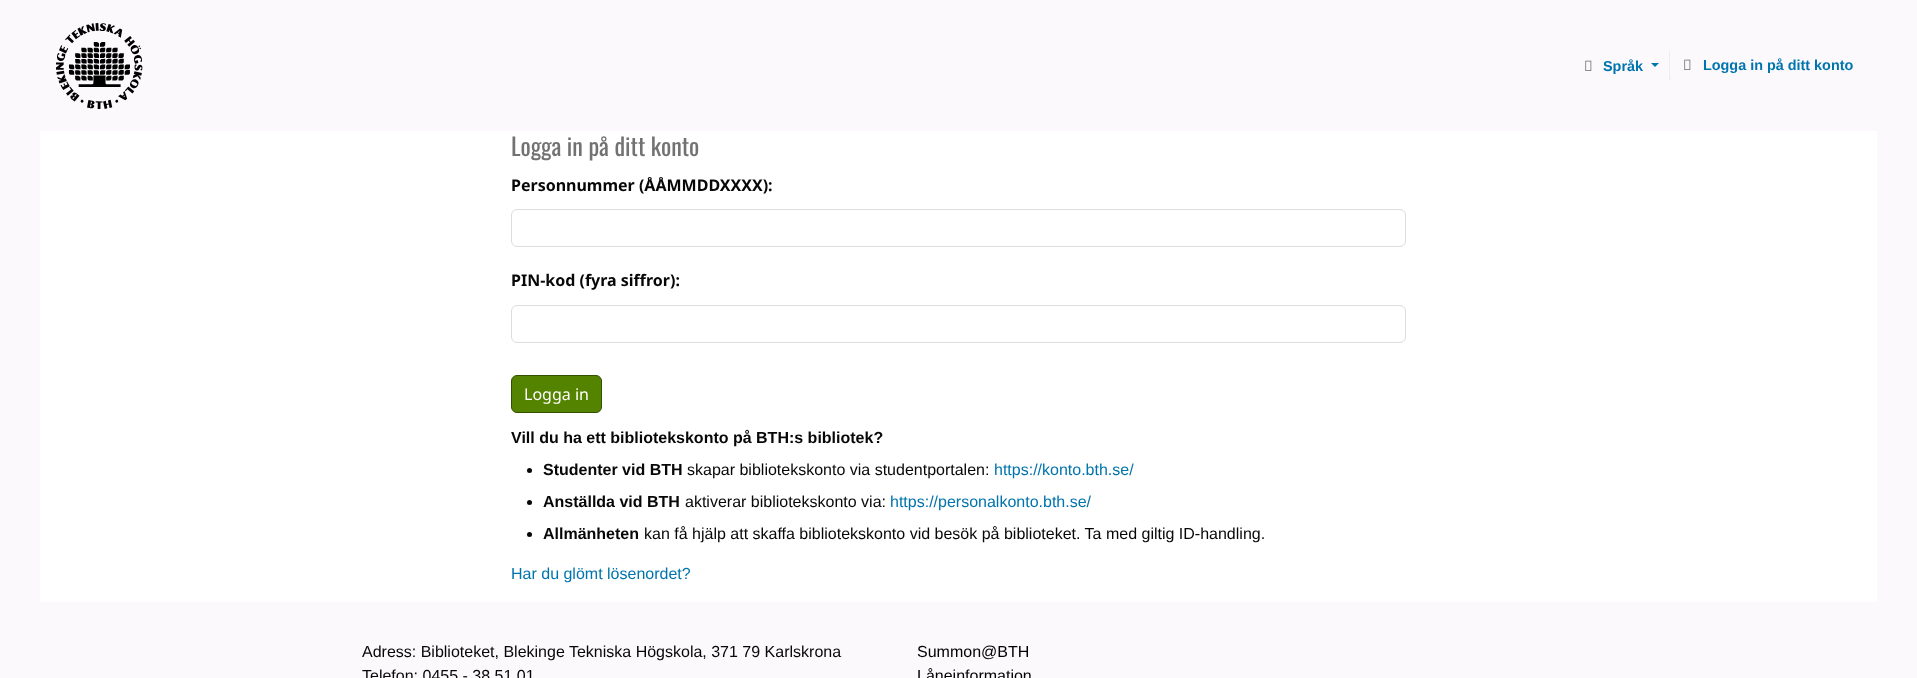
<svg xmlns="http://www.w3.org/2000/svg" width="1917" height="678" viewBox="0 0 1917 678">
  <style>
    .t1 { font: bold 14.4px Liberation Sans; fill: #0074ad; }
    .t2 { font: 24px Oswald; fill: #727272; }
    .t3 { font: bold 16px Noto Sans; fill: #070707; }
    .t4 { font: 16px Noto Sans; fill: #fff; }
    .t5 { font: bold 16px Liberation Sans; fill: #070707; }
    .t6 { font: 16px Liberation Sans; fill: #070707; }
    .t7 { font: 16px Liberation Sans; fill: #0074ad; }
    .t8 { font: 16px Liberation Sans; fill: #000; }
  </style>
  <rect width="100%" height="100%" fill="#fcf9fc"/>
  <image x="56" y="23" width="87" height="86" href="images/1.png"/>
  <image x="1585" y="60" width="7" height="11" href="images/2.png"/>
  <text x="1603" y="71" class="t1">Språk</text>
  <path d="M1651 63H1659L1655 67Z" fill="#0074ad"/>
  <rect x="1669" y="79" width="2" height="1" fill="#eee"/>
  <rect x="1669" y="51" width="1" height="29" fill="#eee"/>
  <image x="1684" y="59" width="7" height="11" href="images/2.png"/>
  <text x="1703" y="70" class="t1">Logga in på ditt konto</text>
  <rect x="40" y="131" width="1837" height="471" fill="#fff"/>
  <text x="511" y="156" class="t2">Logga in på ditt konto</text>
  <text x="511" y="191" class="t3">Personnummer (ÅÅMMDDXXXX):</text>
  <rect x="511.5" y="209.5" width="894" height="37" rx="5.5" fill="none" stroke="#ddd"/>
  <text x="511" y="286" class="t3">PIN-kod (fyra siffror):</text>
  <rect x="511.5" y="305.5" width="894" height="37" rx="5.5" fill="none" stroke="#ddd"/>
  <rect x="511.5" y="375.5" width="90" height="37" rx="5.5" fill="#548300" stroke="#335000"/>
  <text x="524" y="400" class="t4">Logga in</text>
  <text x="511" y="443" class="t5">Vill du ha ett bibliotekskonto på BTH:s bibliotek?</text>
  <circle cx="529.5" cy="470.5" r="2.5" fill="#070707"/>
  <text x="543" y="475" class="t5">Studenter vid BTH</text>
  <text x="687" y="475" class="t6">skapar bibliotekskonto via studentportalen:</text>
  <text x="994" y="475" class="t7">https://konto.bth.se/</text>
  <circle cx="529.5" cy="502.5" r="2.5" fill="#070707"/>
  <text x="543" y="507" class="t5">Anställda vid BTH</text>
  <text x="685" y="507" class="t6">aktiverar bibliotekskonto via:</text>
  <text x="890" y="507" class="t7">https://personalkonto.bth.se/</text>
  <circle cx="529.5" cy="534.5" r="2.5" fill="#070707"/>
  <text x="543" y="539" class="t5">Allmänheten</text>
  <text x="644" y="539" class="t6">kan få hjälp att skaffa bibliotekskonto vid besök på biblioteket. Ta med giltig ID‑handling.</text>
  <text x="511" y="579" class="t7">Har du glömt lösenordet?</text>
  <text x="362" y="657" class="t6">Adress: Biblioteket, Blekinge Tekniska Högskola, 371 79 Karlskrona</text>
  <text x="362" y="681" class="t6">Telefon: 0455 - 38 51 01</text>
  <text x="917" y="657" class="t8">Summon@BTH</text>
  <text x="917" y="681" class="t8">Låneinformation</text>
</svg>
